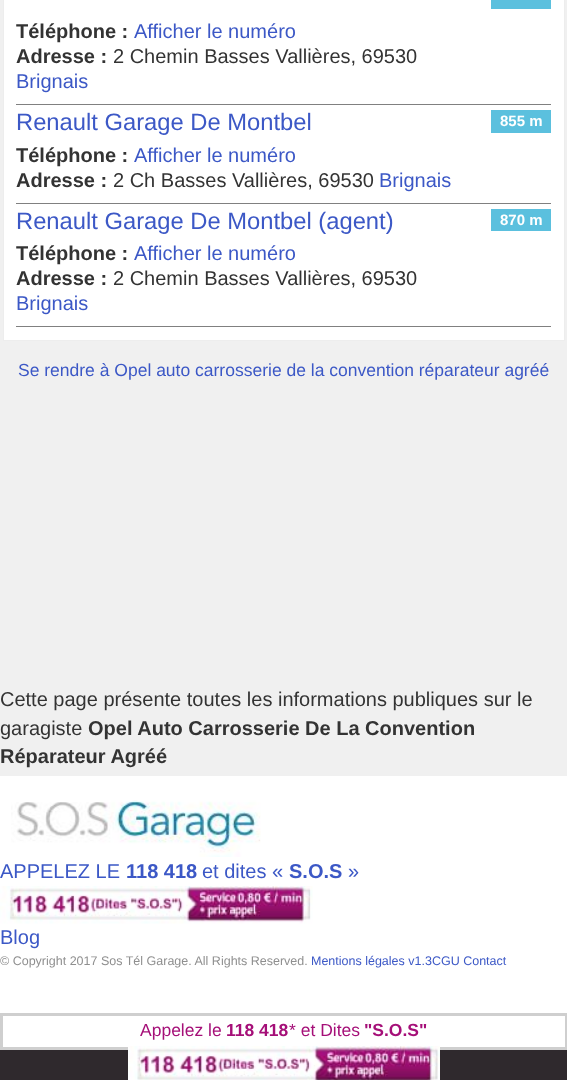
<svg xmlns="http://www.w3.org/2000/svg" width="567" height="1080" viewBox="0 0 567 1080">
  <style>
    .t1 { font: bold 20px Liberation Sans; fill: #333; }
    .t2 { font: 20px Liberation Sans; fill: #3c58c6; }
    .t3 { font: 20px Liberation Sans; fill: #333; }
    .t4 { font: 23.75px Liberation Sans; fill: #3c58c6; }
    .t5 { font: bold 15px Liberation Sans; fill: #fff; }
    .t6 { font: 17.5px Liberation Sans; fill: #3c58c6; }
    .t7 { font: bold 20px Liberation Sans; fill: #3c58c6; }
    .t8 { font: 12.5px Liberation Sans; fill: #8f8f8f; }
    .t9 { font: 12.5px Liberation Sans; fill: #3c58c6; }
    .t10 { font: 17.5px Liberation Sans; fill: #a50f78; }
    .t11 { font: bold 17.5px Liberation Sans; fill: #a50f78; }
  </style>
  <rect width="100%" height="100%" fill="#f0f0f0"/>
  <rect x="3.5" y="-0.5" width="561" height="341" fill="#fff" stroke="#ededed"/>
  <rect x="16" y="104" width="535" height="1" fill="#808080"/>
  <rect x="491" y="0" width="60" height="9" fill="#5bc0de"/>
  <text x="16" y="38" class="t1">Téléphone :</text>
  <text x="134" y="38" class="t2">Afficher le numéro</text>
  <text x="16" y="63" class="t1">Adresse :</text>
  <text x="113" y="63" class="t3">2 Chemin Basses Vallières, 69530</text>
  <text x="16" y="88" class="t2">Brignais</text>
  <rect x="16" y="203" width="535" height="1" fill="#808080"/>
  <text x="16" y="130" class="t4">Renault Garage De Montbel</text>
  <text x="16" y="162" class="t1">Téléphone :</text>
  <text x="134" y="162" class="t2">Afficher le numéro</text>
  <text x="16" y="187" class="t1">Adresse :</text>
  <text x="113" y="187" class="t3">2 Ch Basses Vallières, 69530</text>
  <text x="379" y="187" class="t2">Brignais</text>
  <rect x="491" y="110" width="60" height="23" fill="#5bc0de"/>
  <text x="500" y="126" class="t5">855 m</text>
  <rect x="16" y="326" width="535" height="1" fill="#808080"/>
  <text x="16" y="229" class="t4">Renault Garage De Montbel (agent)</text>
  <text x="16" y="260" class="t1">Téléphone :</text>
  <text x="134" y="260" class="t2">Afficher le numéro</text>
  <text x="16" y="285" class="t1">Adresse :</text>
  <text x="113" y="285" class="t3">2 Chemin Basses Vallières, 69530</text>
  <text x="16" y="310" class="t2">Brignais</text>
  <rect x="491" y="209" width="60" height="22" fill="#5bc0de"/>
  <text x="500" y="225" class="t5">870 m</text>
  <text x="18" y="376" class="t6">Se rendre à Opel auto carrosserie de la convention réparateur agréé</text>
  <text x="0" y="706" class="t3">Cette page présente toutes les informations publiques sur le</text>
  <text x="0" y="735" class="t3">garagiste</text>
  <text x="88" y="735" class="t1">Opel Auto Carrosserie De La Convention</text>
  <text x="0" y="763" class="t1">Réparateur Agréé</text>
  <rect x="0" y="776" width="567" height="271" fill="#fff"/>
  <image x="11" y="800" width="250" height="57" href="images/1.png"/>
  <text x="0" y="878" class="t2">APPELEZ LE</text>
  <text x="126" y="878" class="t7">118 418</text>
  <text x="202" y="878" class="t2">et dites «</text>
  <text x="289" y="878" class="t7">S.O.S</text>
  <text x="348" y="878" class="t2">»</text>
  <image x="0" y="886" width="313" height="38" href="images/2.png"/>
  <text x="0" y="944" class="t2">Blog</text>
  <text x="0" y="965" class="t8">© Copyright 2017 Sos Tél Garage. All Rights Reserved.</text>
  <text x="311" y="965" class="t9">Mentions légales v1.3CGU Contact</text>
  <rect x="1.5" y="1014.5" width="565" height="34" fill="none" stroke="#cfcfcf" stroke-width="3"/>
  <text x="140" y="1036" class="t10">Appelez le</text>
  <text x="226" y="1036" class="t11">118 418</text>
  <text x="289" y="1036" class="t10">* et Dites</text>
  <text x="364" y="1036" class="t11">"S.O.S"</text>
  <rect x="0" y="1050" width="567" height="30" fill="#2f292d"/>
  <image x="128" y="1046" width="312" height="34" href="images/3.png"/>
</svg>
